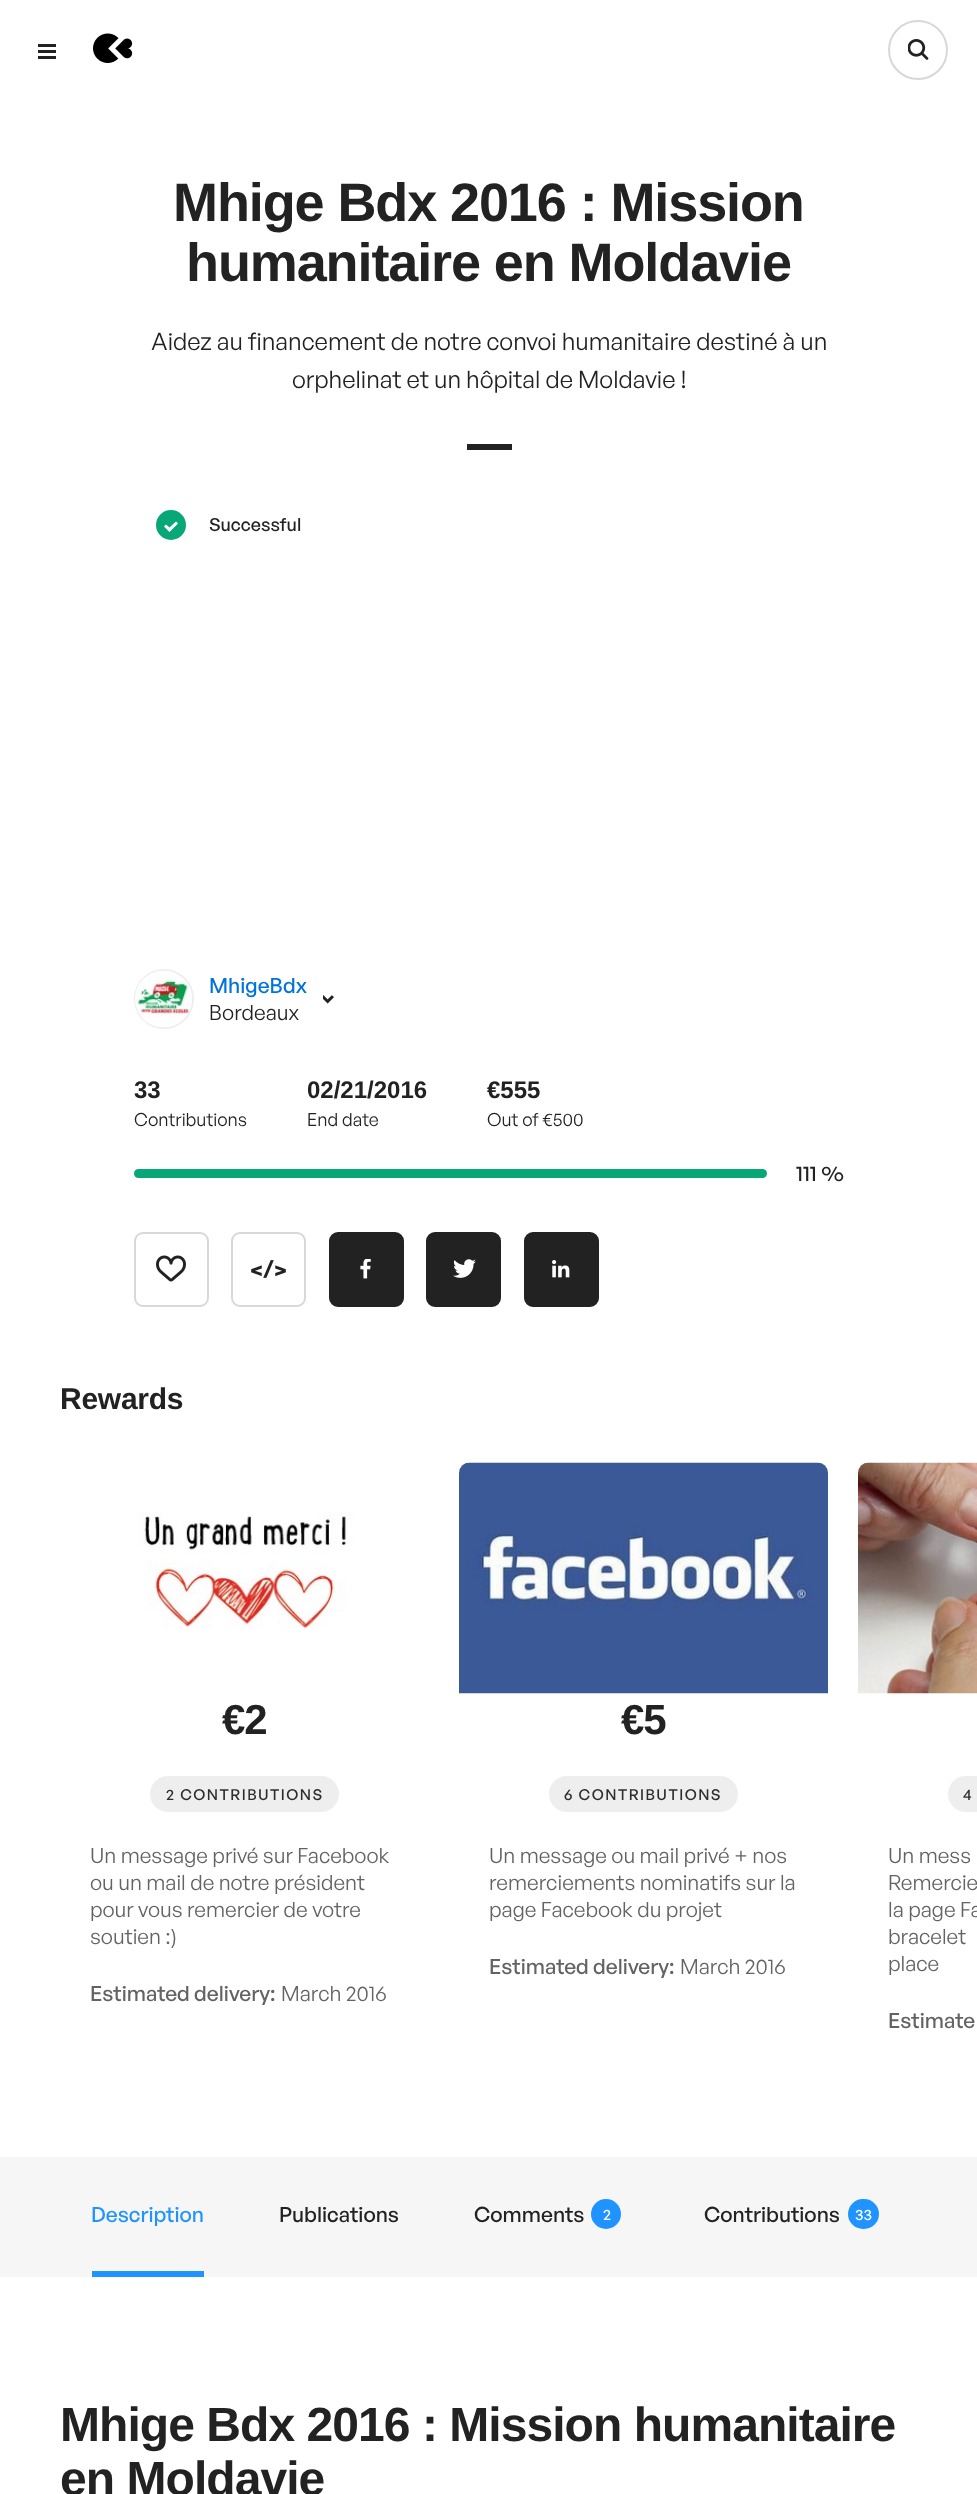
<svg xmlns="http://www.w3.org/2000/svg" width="977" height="2494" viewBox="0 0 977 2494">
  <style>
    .t1 { font: bold 54px Liberation Sans; letter-spacing: -1.1px; fill: #222; }
    .t2 { font: 24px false; fill: #222; }
    .t3 { font: 500 18px General Sans; fill: #222; }
    .t4 { font: 500 21px General Sans; fill: #0073de; }
    .t5 { font: 21px false; fill: #222; }
    .t6 { font: bold 24px Liberation Sans; fill: #222; }
    .t7 { font: 18px false; fill: #222; }
    .t8 { font: 500 21px General Sans; fill: #222; }
    .t9 { font: bold 30px Liberation Sans; letter-spacing: -0.25px; fill: #222; }
    .t10 { font: bold 42px Liberation Sans; letter-spacing: -1px; fill: #222; }
    .t11 { font: 500 15px General Sans; letter-spacing: 1.5px; fill: #2d2d2d; }
    .t12 { font: 21px false; fill: #636363; }
    .t13 { font: 500 21px General Sans; fill: #636363; }
    .t14 { font: 500 21px General Sans; fill: #1f93ff; }
    .t15 { font: 500 15px General Sans; fill: #fff; }
    .t16 { font: bold 48px Liberation Sans; letter-spacing: -0.95px; fill: #222; }
  </style>
  <rect width="100%" height="100%" fill="#fff"/>
  <rect x="38" y="44" width="18" height="3" fill="#222"/>
  <rect x="38" y="50" width="18" height="3" fill="#222"/>
  <rect x="38" y="56" width="18" height="3" fill="#222"/>
  <image x="93" y="33" width="40" height="30" href="images/1.png"/>
  <circle cx="918" cy="50" r="29" fill="none" stroke="#d8d8d8" stroke-width="2"/>
  <image x="908" y="39" width="21" height="21" href="images/2.png"/>
  <text x="173" y="221" class="t1">Mhige Bdx 2016 : Mission</text>
  <text x="186" y="281" class="t1">humanitaire en Moldavie</text>
  <text x="151" y="350" class="t2">Aidez au financement de notre convoi humanitaire destiné à un</text>
  <text x="292" y="388" class="t2">orphelinat et un hôpital de Moldavie !</text>
  <rect x="467" y="444" width="45" height="6" fill="#222"/>
  <circle cx="171" cy="525" r="15" fill="#08a777"/>
  <path d="M168.5 531L169.5 532L178 523.5L176 521.5L169.5 527.5L166 524.5L164 526.5Z" fill="#fff"/>
  <text x="209" y="531" class="t3">Successful</text>
  <circle cx="164" cy="999" r="29" fill="none" stroke="#eee" stroke-width="2"/>
  <image x="135" y="970" width="57" height="58" href="images/3.png"/>
  <text x="209" y="993" class="t4">MhigeBdx</text>
  <text x="209" y="1020" class="t5">Bordeaux</text>
  <image x="323" y="995" width="11" height="9" href="images/4.png"/>
  <text x="134" y="1098" class="t6">33</text>
  <text x="134" y="1126" class="t7">Contributions</text>
  <text x="307" y="1098" class="t6">02/21/2016</text>
  <text x="307" y="1126" class="t7">End date</text>
  <text x="487" y="1098" class="t6">€555</text>
  <text x="487" y="1126" class="t7">Out of €500</text>
  <rect x="134" y="1169" width="633" height="9" rx="4.5" fill="#08a777"/>
  <text x="796" y="1181" class="t8">111 %</text>
  <rect x="135" y="1233" width="73" height="73" rx="8" fill="none" stroke="#d8d8d8" stroke-width="2"/>
  <image x="156" y="1255" width="30" height="27" href="images/5.png"/>
  <rect x="232" y="1233" width="73" height="73" rx="8" fill="none" stroke="#d8d8d8" stroke-width="2"/>
  <image x="251" y="1260" width="35" height="18" href="images/6.png"/>
  <rect x="330" y="1233" width="73" height="73" rx="8" fill="#222" stroke="#222" stroke-width="2"/>
  <image x="360" y="1259" width="11" height="20" href="images/7.png"/>
  <rect x="427" y="1233" width="73" height="73" rx="8" fill="#222" stroke="#222" stroke-width="2"/>
  <image x="453" y="1259" width="23" height="19" href="images/8.png"/>
  <rect x="525" y="1233" width="73" height="73" rx="8" fill="#222" stroke="#222" stroke-width="2"/>
  <image x="552" y="1260" width="18" height="18" href="images/9.png"/>
  <text x="60" y="1409" class="t9">Rewards</text>
  <image x="63" y="1465" width="363" height="164" href="images/10.png"/>
  <text x="222" y="1734" class="t10">€2</text>
  <rect x="150" y="1776" width="189" height="36" rx="18" fill="#eee"/>
  <text x="166" y="1800" class="t11">2 CONTRIBUTIONS</text>
  <text x="90" y="1863" class="t12">Un message privé sur Facebook</text>
  <text x="90" y="1890" class="t12">ou un mail de notre président</text>
  <text x="90" y="1917" class="t12">pour vous remercier de votre</text>
  <text x="90" y="1944" class="t12">soutien :)</text>
  <text x="90" y="2001" class="t13">Estimated delivery:</text>
  <text x="281" y="2001" class="t12">March 2016</text>
  <image x="459" y="1462" width="369" height="232" href="images/11.png"/>
  <text x="621" y="1734" class="t10">€5</text>
  <rect x="549" y="1776" width="189" height="36" rx="18" fill="#eee"/>
  <text x="564" y="1800" class="t11">6 CONTRIBUTIONS</text>
  <text x="489" y="1863" class="t12">Un message ou mail privé + nos</text>
  <text x="489" y="1890" class="t12">remerciements nominatifs sur la</text>
  <text x="489" y="1917" class="t12">page Facebook du projet</text>
  <text x="489" y="1974" class="t13">Estimated delivery:</text>
  <text x="680" y="1974" class="t12">March 2016</text>
  <image x="858" y="1462" width="119" height="232" href="images/12.png"/>
  <path d="M966 1776H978V1812H966C956 1812 948 1804 948 1794C948 1784 956 1776 966 1776Z" fill="#eee"/>
  <text x="963" y="1800" class="t11">4</text>
  <text x="888" y="1863" class="t12">Un mess</text>
  <text x="888" y="1890" class="t12">Remercie</text>
  <text x="888" y="1917" class="t12">la page Fa</text>
  <text x="888" y="1944" class="t12">bracelet</text>
  <text x="888" y="1971" class="t12">place</text>
  <text x="888" y="2028" class="t13">Estimate</text>
  <rect x="0" y="2157" width="977" height="120" fill="#f6f6f6"/>
  <rect x="92" y="2271" width="112" height="6" fill="#1f93ff"/>
  <text x="91" y="2222" class="t14">Description</text>
  <text x="279" y="2222" class="t8">Publications</text>
  <text x="474" y="2222" class="t8">Comments</text>
  <circle cx="606" cy="2214" r="15" fill="#1f93ff"/>
  <text x="603" y="2220" class="t15">2</text>
  <text x="704" y="2222" class="t8">Contributions</text>
  <rect x="848" y="2199" width="31" height="30" rx="15" fill="#1f93ff"/>
  <text x="855" y="2220" class="t15">33</text>
  <text x="60" y="2441" class="t16">Mhige Bdx 2016 : Mission humanitaire</text>
  <text x="60" y="2495" class="t16">en Moldavie</text>
</svg>
